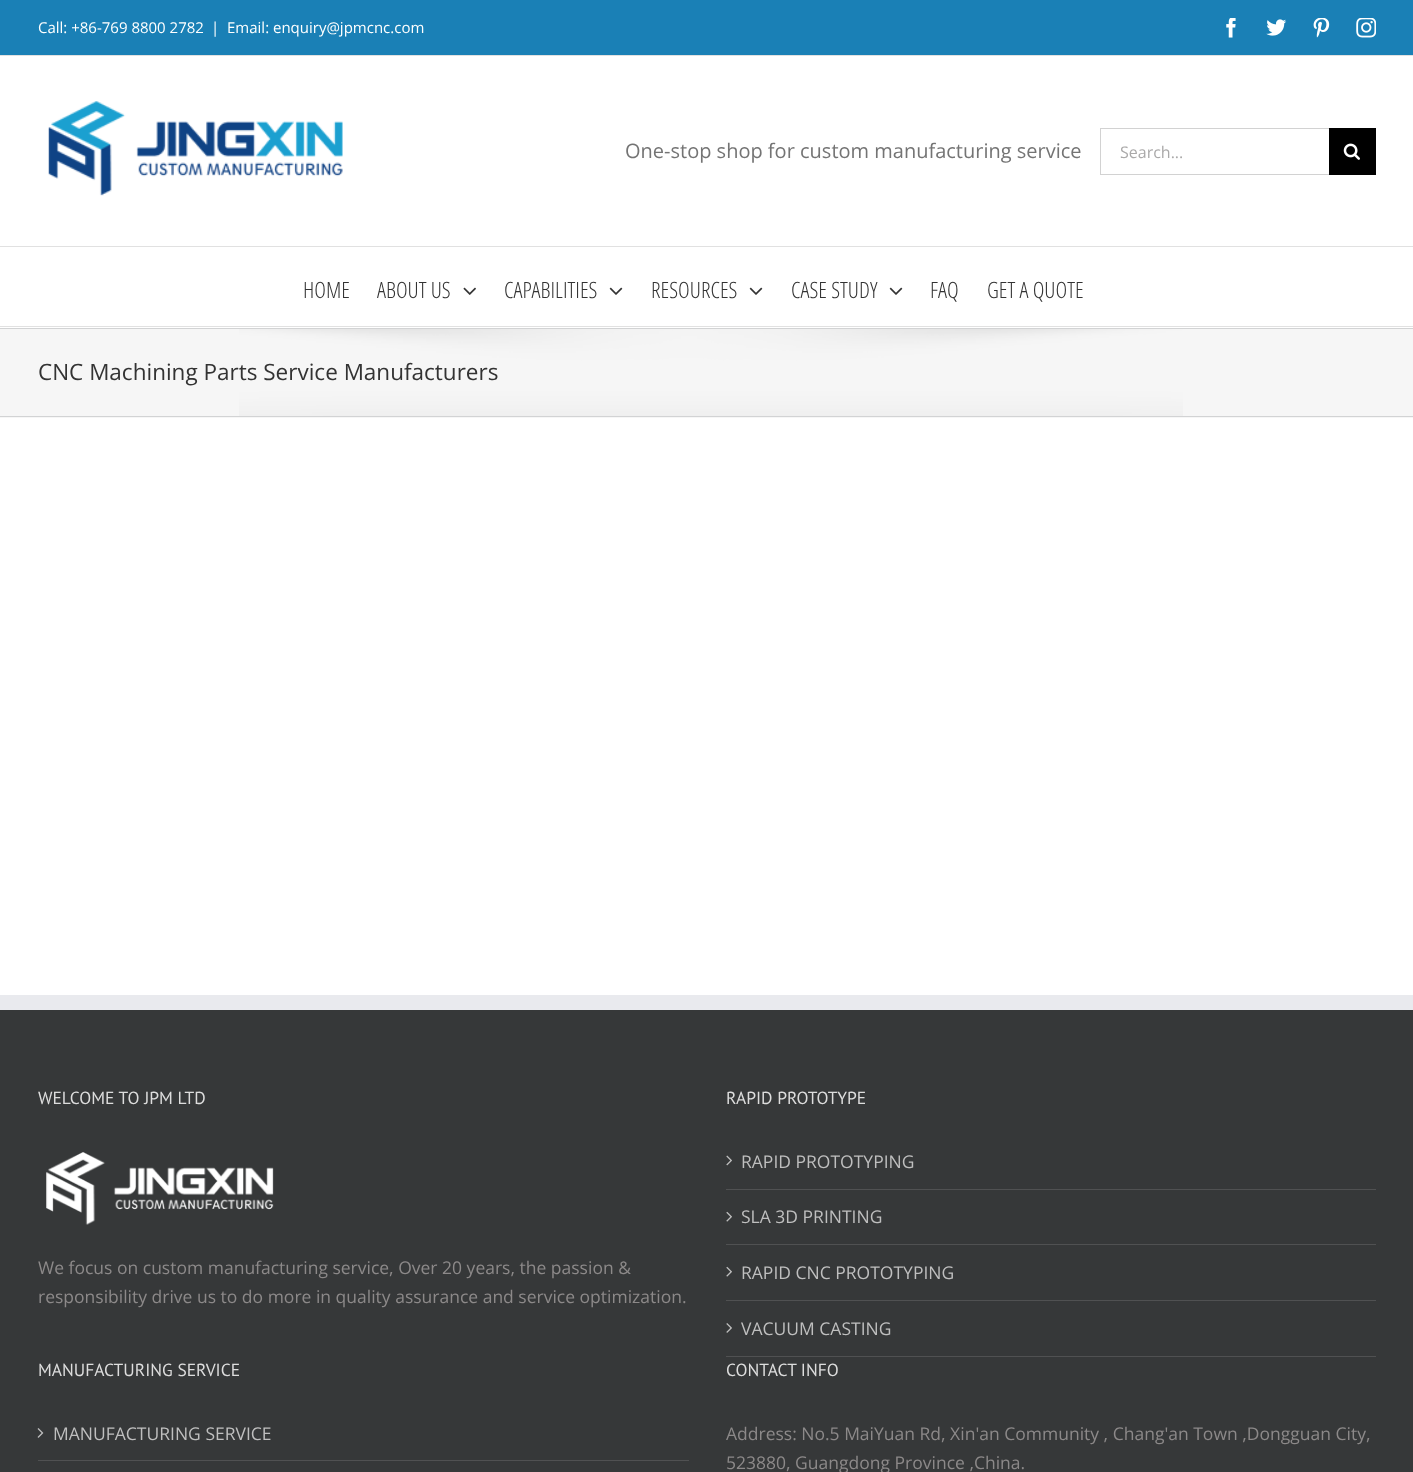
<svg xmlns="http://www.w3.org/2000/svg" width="1413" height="1472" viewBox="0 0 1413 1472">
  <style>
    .t1 { font: 15px Open Sans; fill: #fff; }
    .t2 { font: 20px Open Sans; fill: #747474; }
    .t3 { font: 16px Open Sans; fill: #aaa9a9; }
    .t4 { font: 300 22.5px Open Sans Condensed; fill: #333; }
    .t5 { font: 22.5px Open Sans; fill: #333; }
    .t6 { font: 17.5px PT Sans; fill: #ddd; }
    .t7 { font: 17.5px Open Sans; fill: #8c8989; }
    .t8 { font: 17.5px Open Sans; fill: #bfbfbf; }
  </style>
  <rect width="100%" height="100%" fill="#fff"/>
  <rect x="0" y="0" width="1413" height="55" fill="#1a80b6"/>
  <rect x="0" y="55" width="1413" height="1" fill="#e1e1e1"/>
  <text x="38" y="33" class="t1">Call: +86-769 8800 2782</text>
  <text x="211" y="33" class="t1">|</text>
  <text x="227" y="33" class="t1">Email: enquiry@jpmcnc.com</text>
  <image x="1226" y="18" width="10" height="20" href="images/1.png"/>
  <image x="1266" y="19" width="21" height="17" href="images/2.png"/>
  <image x="1313" y="18" width="17" height="20" href="images/3.png"/>
  <image x="1356" y="18" width="20" height="20" href="images/4.png"/>
  <rect x="0" y="246" width="1413" height="1" fill="#e1e1e1"/>
  <image x="48" y="101" width="295" height="95" href="images/5.png"/>
  <text x="625" y="158" class="t2">One-stop shop for custom manufacturing service</text>
  <rect x="1100" y="128" width="229" height="1" fill="#d2d2d2"/>
  <rect x="1100" y="174" width="229" height="1" fill="#d2d2d2"/>
  <rect x="1100" y="128" width="1" height="47" fill="#d2d2d2"/>
  <text x="1120" y="158" class="t3">Search...</text>
  <rect x="1329" y="128" width="47" height="47" fill="#000"/>
  <image x="1343" y="143" width="17" height="17" href="images/6.png"/>
  <rect x="0" y="326" width="1413" height="1" fill="#e1e1e1"/>
  <text x="303" y="298" class="t4">HOME</text>
  <text x="377" y="298" class="t4">ABOUT US</text>
  <image x="463" y="287" width="13" height="8" href="images/7.png"/>
  <text x="504" y="298" class="t4">CAPABILITIES</text>
  <image x="609" y="287" width="14" height="8" href="images/8.png"/>
  <text x="651" y="298" class="t4">RESOURCES</text>
  <image x="749" y="287" width="14" height="8" href="images/8.png"/>
  <text x="791" y="298" class="t4">CASE STUDY</text>
  <image x="889" y="287" width="14" height="8" href="images/8.png"/>
  <text x="930" y="298" class="t4">FAQ</text>
  <text x="987" y="298" class="t4">GET A QUOTE</text>
  <rect x="0" y="329" width="1413" height="89" fill="#f6f6f6"/>
  <image x="239" y="329" width="944" height="87" href="images/9.png"/>
  <rect x="0" y="328" width="1413" height="1" fill="#d2d3d4"/>
  <rect x="0" y="416" width="1413" height="1" fill="#d2d3d4"/>
  <text x="38" y="380" class="t5">CNC Machining Parts Service Manufacturers</text>
  <rect x="0" y="1010" width="1413" height="462" fill="#363839"/>
  <rect x="0" y="995" width="1413" height="15" fill="#e9eaee"/>
  <text x="38" y="1104" class="t6">WELCOME TO JPM LTD</text>
  <image x="46" y="1152" width="228" height="73" href="images/10.png"/>
  <text x="38" y="1274" class="t7">We focus on custom manufacturing service, Over 20 years, the passion &amp;</text>
  <text x="38" y="1303" class="t7">responsibility drive us to do more in quality assurance and service optimization.</text>
  <text x="726" y="1104" class="t6">RAPID PROTOTYPE</text>
  <rect x="726" y="1189" width="650" height="1" fill="#505152"/>
  <image x="726" y="1155" width="6" height="11" href="images/11.png"/>
  <text x="741" y="1168" class="t8">RAPID PROTOTYPING</text>
  <rect x="726" y="1244" width="650" height="1" fill="#505152"/>
  <image x="726" y="1211" width="6" height="11" href="images/12.png"/>
  <text x="741" y="1223" class="t8">SLA 3D PRINTING</text>
  <rect x="726" y="1300" width="650" height="1" fill="#505152"/>
  <image x="726" y="1266" width="6" height="11" href="images/12.png"/>
  <text x="741" y="1279" class="t8">RAPID CNC PROTOTYPING</text>
  <rect x="726" y="1356" width="650" height="1" fill="#505152"/>
  <image x="726" y="1323" width="6" height="10" href="images/13.png"/>
  <text x="741" y="1335" class="t8">VACUUM CASTING</text>
  <text x="38" y="1376" class="t6">MANUFACTURING SERVICE</text>
  <rect x="38" y="1460" width="651" height="1" fill="#505152"/>
  <image x="37" y="1428" width="7" height="10" href="images/14.png"/>
  <text x="53" y="1440" class="t8">MANUFACTURING SERVICE</text>
  <text x="726" y="1376" class="t6">CONTACT INFO</text>
  <text x="726" y="1440" class="t7">Address: No.5 MaiYuan Rd, Xin'an Community , Chang'an Town ,Dongguan City,</text>
  <text x="726" y="1469" class="t7">523880, Guangdong Province ,China.</text>
</svg>
